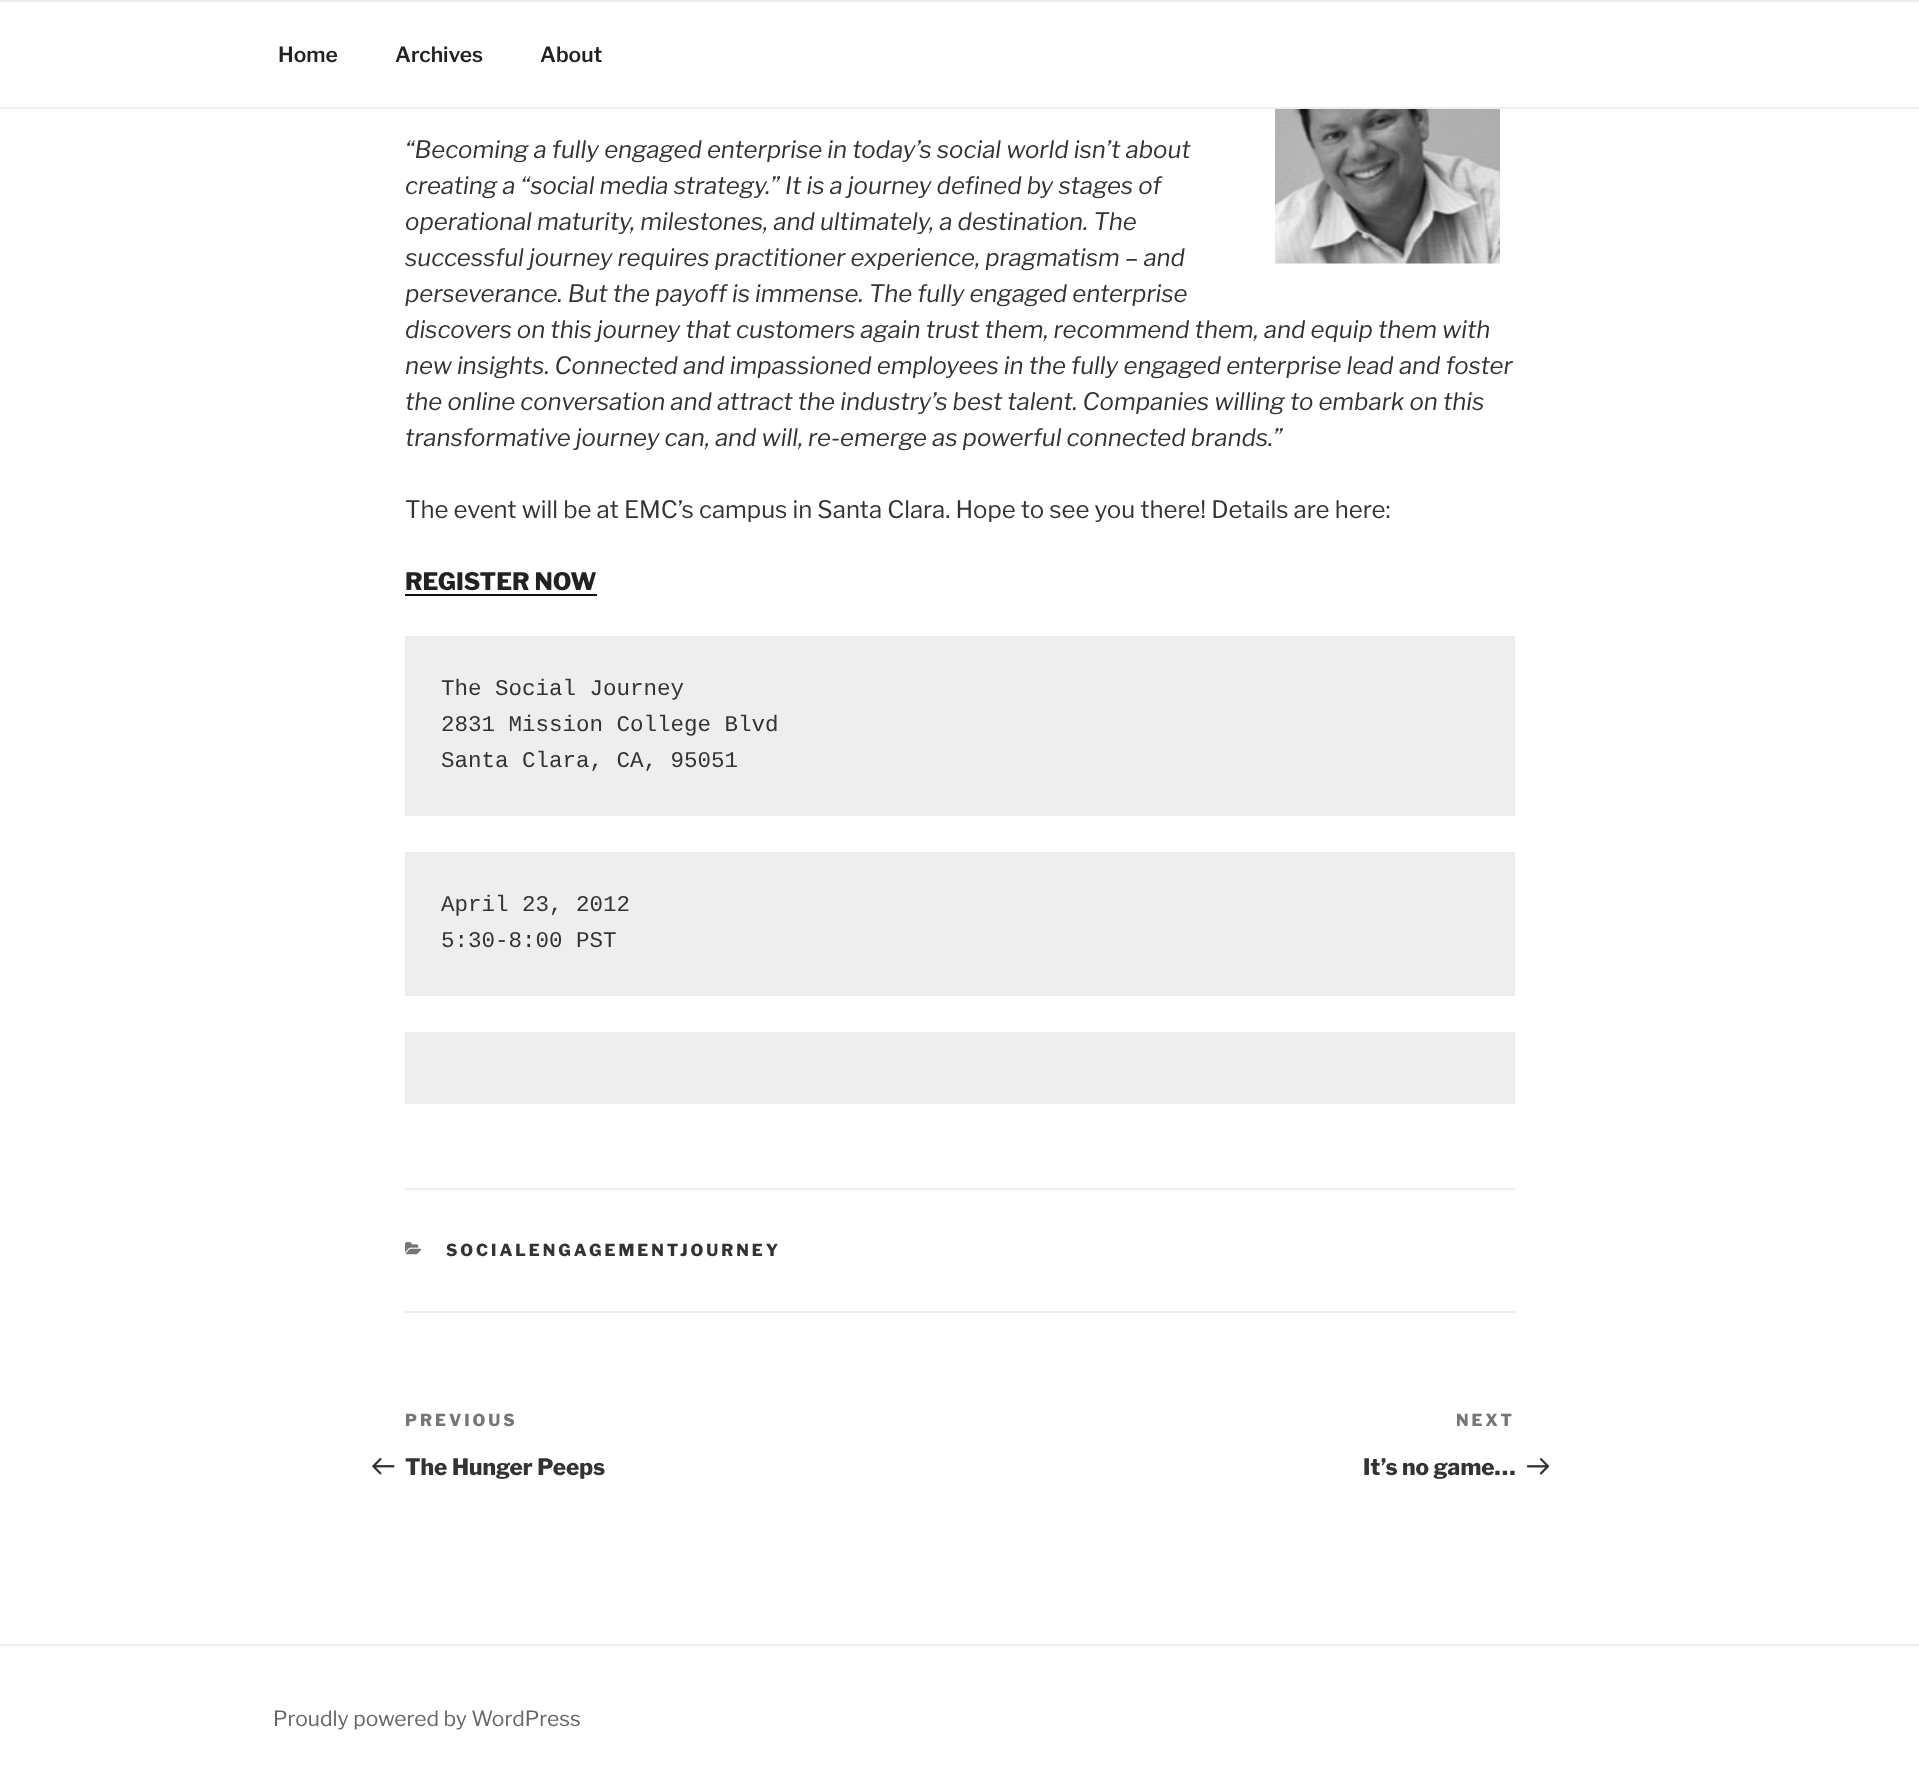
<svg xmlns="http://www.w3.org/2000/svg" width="1919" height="1788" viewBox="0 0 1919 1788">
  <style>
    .t1 { font: 100 21px 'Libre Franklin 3'; fill: #222; }
    .t2 { font: italic 100 24px Libre Franklin; fill: #333; }
    .t3 { font: 100 24px 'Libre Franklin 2'; fill: #333; }
    .t4 { font: 100 24px Libre Franklin; fill: #222; }
    .t5 { font: 22.5px Liberation Mono; fill: #333; }
    .t6 { font: 100 16.5px Libre Franklin; letter-spacing: 3px; fill: #333; }
    .t7 { font: 100 16.5px Libre Franklin; letter-spacing: 3px; fill: #767676; }
    .t8 { font: 100 22.5px Libre Franklin; fill: #333; }
    .t9 { font: 100 21px 'Libre Franklin 2'; fill: #666; }
  </style>
  <rect width="100%" height="100%" fill="#fff"/>
  <rect x="0" y="0" width="1919" height="2" fill="#eee"/>
  <rect x="0" y="107" width="1919" height="2" fill="#eee"/>
  <text x="278" y="62" class="t1">Home</text>
  <text x="395" y="62" class="t1">Archives</text>
  <text x="540" y="62" class="t1">About</text>
  <image x="1275" y="109" width="225" height="155" href="images/1.png"/>
  <text x="405" y="158" class="t2">“Becoming a fully engaged enterprise in today’s social world isn’t about</text>
  <text x="405" y="194" class="t2">creating a “social media strategy.” It is a journey defined by stages of</text>
  <text x="405" y="230" class="t2">operational maturity, milestones, and ultimately, a destination. The</text>
  <text x="405" y="266" class="t2">successful journey requires practitioner experience, pragmatism – and</text>
  <text x="405" y="302" class="t2">perseverance. But the payoff is immense. The fully engaged enterprise</text>
  <text x="405" y="338" class="t2">discovers on this journey that customers again trust them, recommend them, and equip them with</text>
  <text x="405" y="374" class="t2">new insights. Connected and impassioned employees in the fully engaged enterprise lead and foster</text>
  <text x="405" y="410" class="t2">the online conversation and attract the industry’s best talent. Companies willing to embark on this</text>
  <text x="405" y="446" class="t2">transformative journey can, and will, re-emerge as powerful connected brands.”</text>
  <text x="405" y="518" class="t3">The event will be at EMC’s campus in Santa Clara. Hope to see you there! Details are here:</text>
  <text x="405" y="590" class="t4">REGISTER NOW</text>
  <rect x="405" y="594" width="192" height="2" fill="#0f0f0f"/>
  <rect x="405" y="636" width="1110" height="180" fill="#eee"/>
  <text x="441" y="695" class="t5">The Social Journey</text>
  <text x="441" y="731" class="t5">2831 Mission College Blvd</text>
  <text x="441" y="767" class="t5">Santa Clara, CA, 95051</text>
  <rect x="405" y="852" width="1110" height="144" fill="#eee"/>
  <text x="441" y="911" class="t5">April 23, 2012</text>
  <text x="441" y="947" class="t5">5:30-8:00 PST</text>
  <rect x="405" y="1032" width="1110" height="72" fill="#eee"/>
  <rect x="405" y="1188" width="1110" height="2" fill="#eee"/>
  <rect x="405" y="1311" width="1110" height="2" fill="#eee"/>
  <image x="405" y="1242" width="17" height="13" href="images/2.png"/>
  <text x="446" y="1256" class="t6">SOCIALENGAGEMENTJOURNEY</text>
  <text x="405" y="1426" class="t7">PREVIOUS</text>
  <image x="372" y="1457" width="23" height="18" href="images/3.png"/>
  <text x="405" y="1475" class="t8">The Hunger Peeps</text>
  <text x="1456" y="1426" class="t7">NEXT</text>
  <text x="1363" y="1475" class="t8">It’s no game…</text>
  <image x="1527" y="1457" width="23" height="18" href="images/4.png"/>
  <rect x="0" y="1644" width="1919" height="2" fill="#eee"/>
  <text x="273" y="1726" class="t9">Proudly powered by WordPress</text>
</svg>
